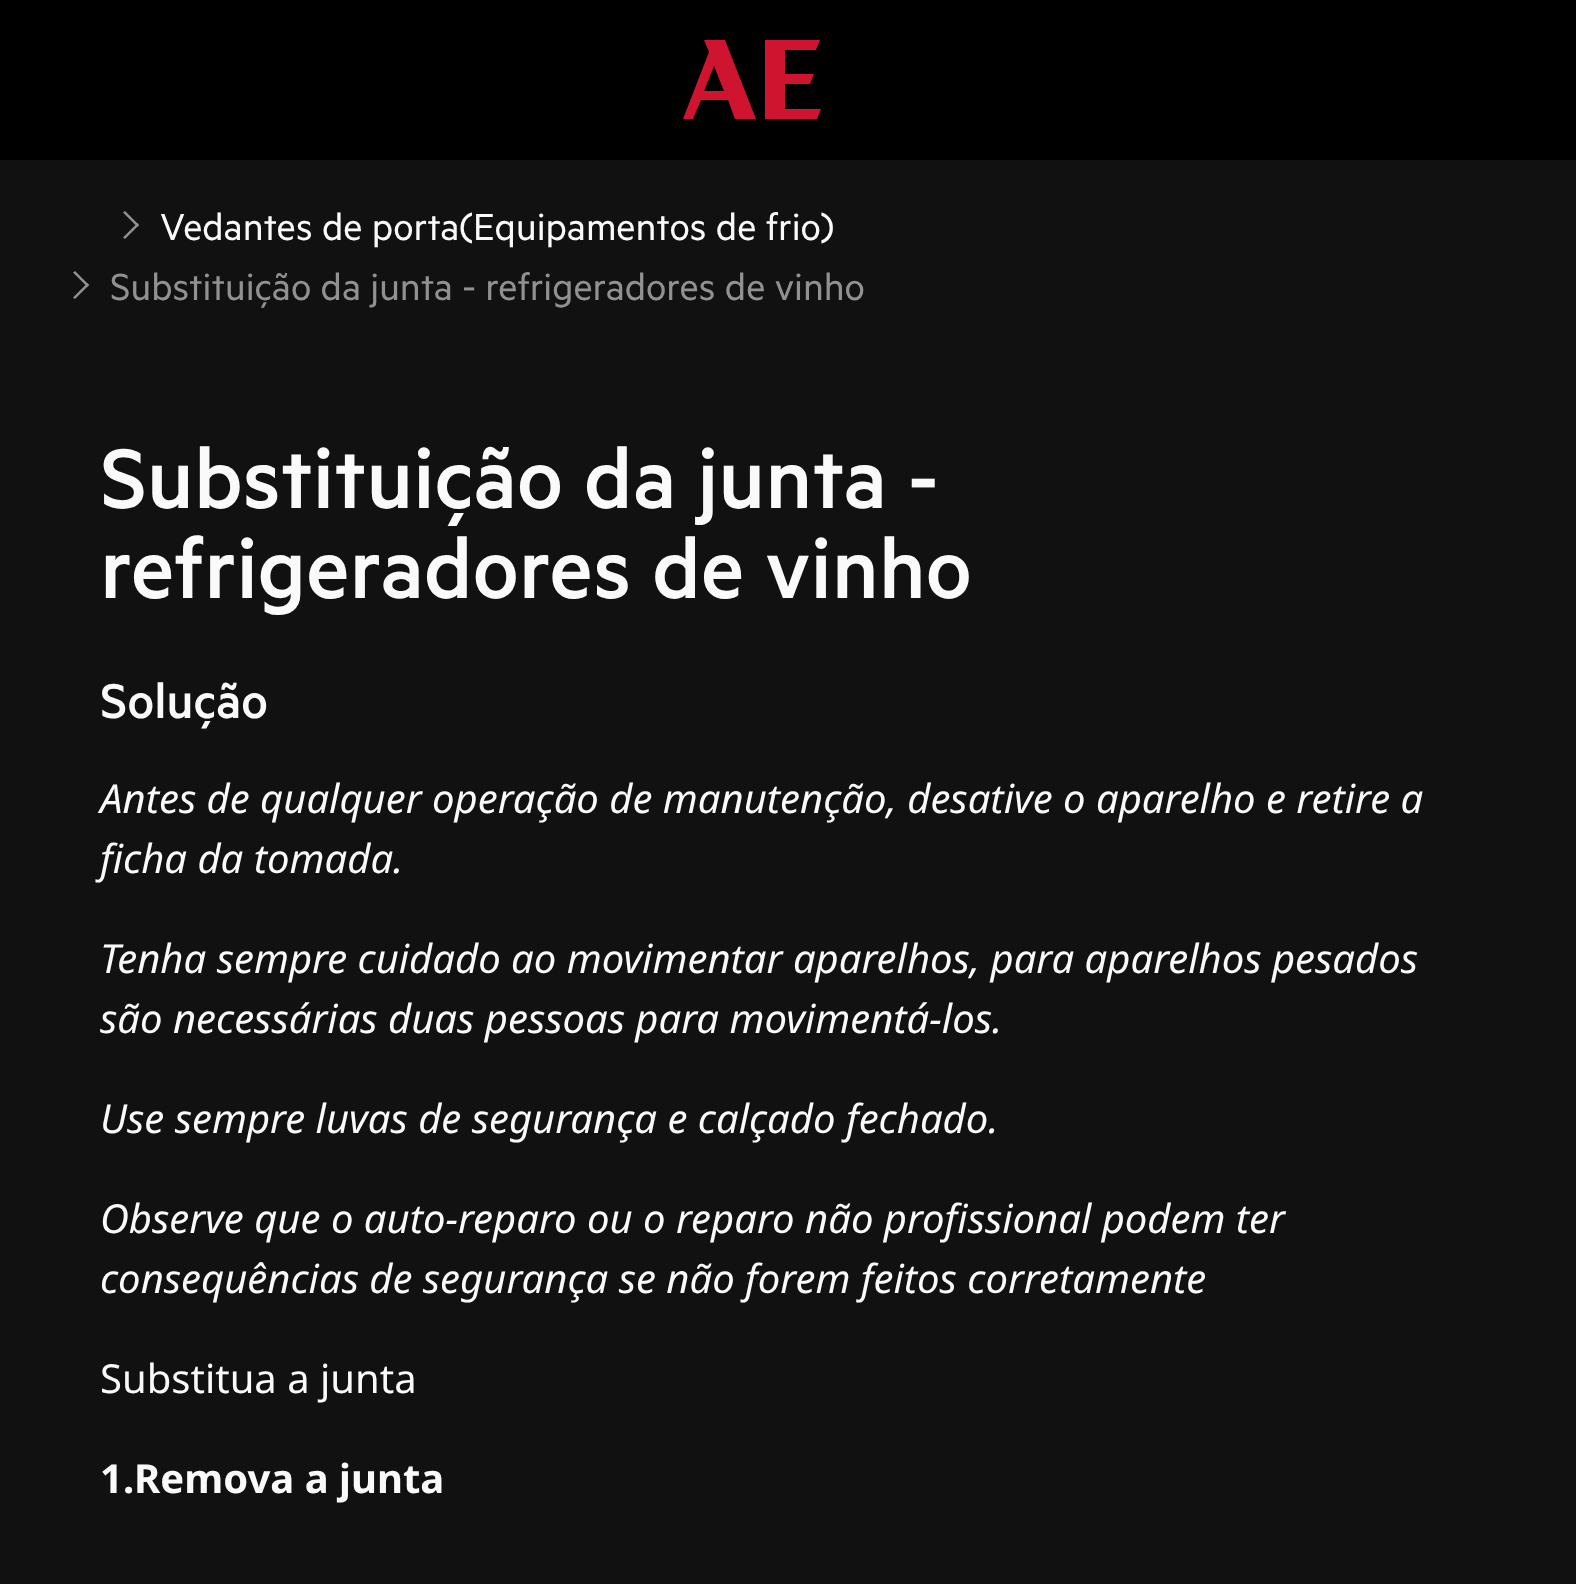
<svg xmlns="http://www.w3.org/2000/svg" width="1576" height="1584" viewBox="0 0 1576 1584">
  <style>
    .t1 { font: 42.5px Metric; fill: #fafafa; }
    .t2 { font: 42.5px Metric; fill: #919191; }
    .t3 { font: 500 95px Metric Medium; fill: #fafafa; }
    .t4 { font: 500 55px Metric Medium; fill: #fafafa; }
    .t5 { font: italic 40px Noto Sans; fill: #fafafa; }
    .t6 { font: 40px Noto Sans; fill: #fafafa; }
    .t7 { font: bold 40px Noto Sans; fill: #fafafa; }
  </style>
  <rect width="100%" height="100%" fill="#111"/>
  <rect x="0" y="0" width="1576" height="160" fill="#000"/>
  <path d="M704 40L709 52L683 119H693L701 100H728L735 119H756L725 40ZM704 91L714 66L724 91ZM785 84H810L814 74H785V50H816L820 40H765V119H817L821 109H785Z" fill="#cf1430"/>
  <path d="M125 211L139 225L137.5 227L123 212.5Z" fill="#919191"/>
  <path d="M137.5 223L139 225L125 239L123 237.5Z" fill="#919191"/>
  <text x="160" y="240" class="t1">Vedantes de porta(Equipamentos de frio)</text>
  <path d="M75 271L89 285L87.5 287L73 272.5Z" fill="#919191"/>
  <path d="M87.5 283L89 285L75 299L73 297.5Z" fill="#919191"/>
  <text x="110" y="300" class="t2">Substituição da junta - refrigeradores de vinho</text>
  <text x="100" y="508" class="t3">Substituição da junta -</text>
  <text x="100" y="598" class="t3">refrigeradores de vinho</text>
  <text x="100" y="718" class="t4">Solução</text>
  <text x="100" y="813" class="t5">Antes de qualquer operação de manutenção, desative o aparelho e retire a</text>
  <text x="100" y="873" class="t5">ficha da tomada.</text>
  <text x="100" y="973" class="t5">Tenha sempre cuidado ao movimentar aparelhos, para aparelhos pesados</text>
  <text x="100" y="1033" class="t5">são necessárias duas pessoas para movimentá-los.</text>
  <text x="100" y="1133" class="t5">Use sempre luvas de segurança e calçado fechado.</text>
  <text x="100" y="1233" class="t5">Observe que o auto-reparo ou o reparo não profissional podem ter</text>
  <text x="100" y="1293" class="t5">consequências de segurança se não forem feitos corretamente</text>
  <text x="100" y="1393" class="t6">Substitua a junta</text>
  <text x="100" y="1493" class="t7">1.Remova a junta</text>
</svg>
